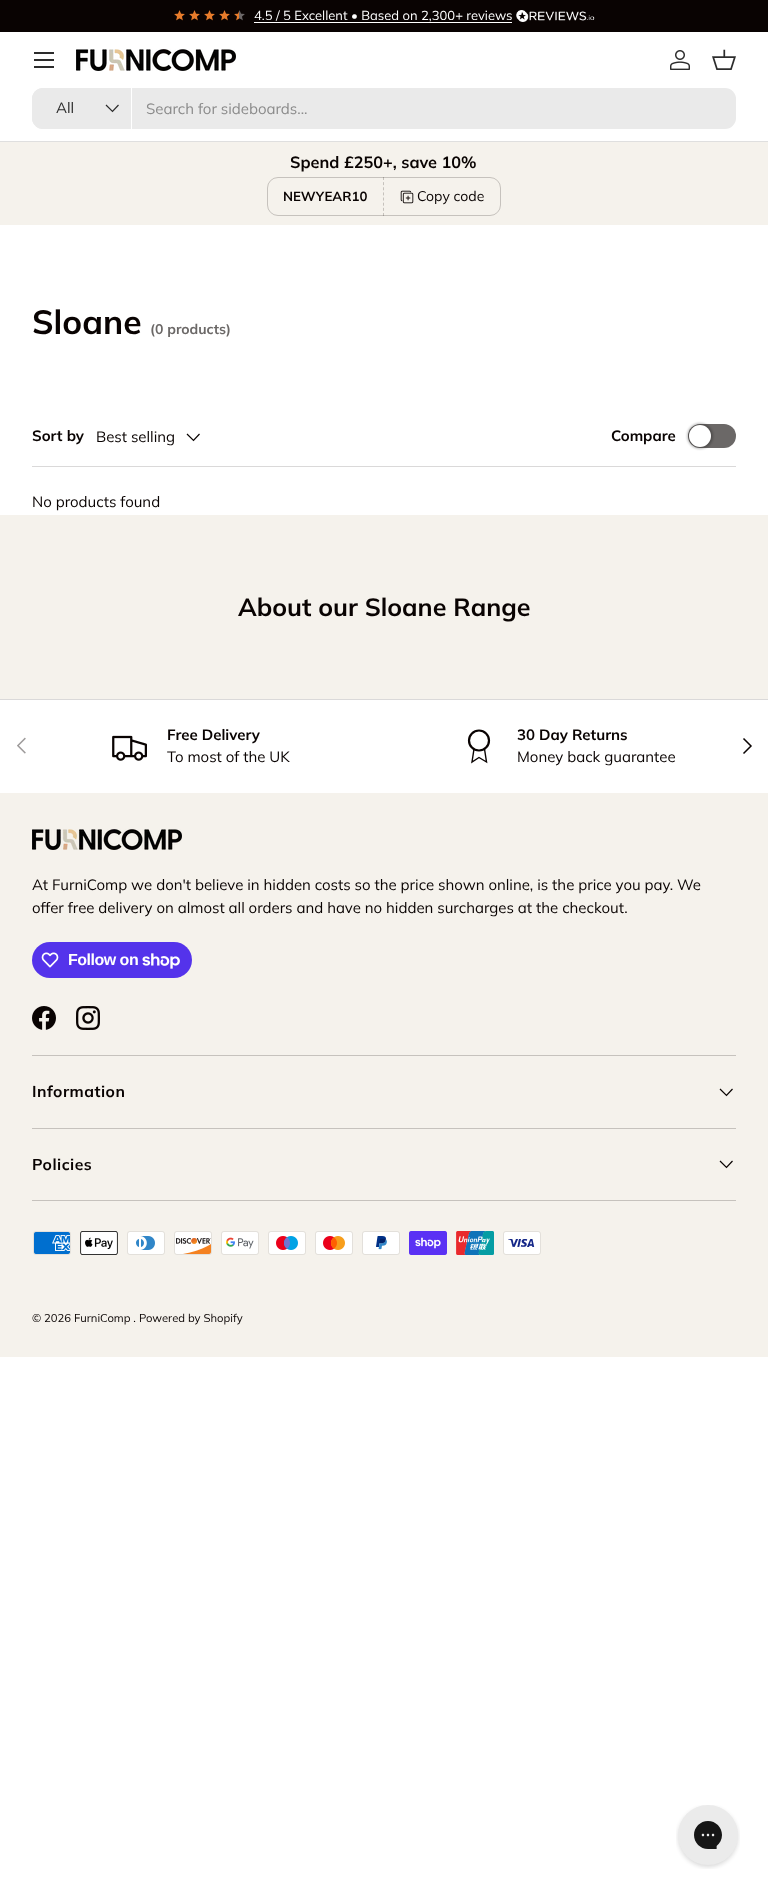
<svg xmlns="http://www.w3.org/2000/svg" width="768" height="1892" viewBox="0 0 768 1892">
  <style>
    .t1 { font: 13px Muli; fill: #fff; }
    .t2 { font: 15px Muli; fill: #2c2c2c; }
    .t3 { font: 15px Muli; fill: #8b8b8b; }
    .t4 { font: bold 16.3px Muli; fill: #090302; }
    .t5 { font: bold 13.25px Muli; fill: #090302; }
    .t6 { font: 14px Muli; fill: #090302; }
    .t7 { font: bold 33.5px Muli; fill: #090302; }
    .t8 { font: bold 14px Muli; fill: #6b6867; }
    .t9 { font: bold 15px Muli; fill: #090302; }
    .t10 { font: 15px Muli; fill: #090302; }
    .t11 { font: bold 25px Muli; fill: #090302; }
    .t12 { font: bold 16px Liberation Sans; letter-spacing: -0.5px; fill: #fff; }
    .t13 { font: bold 15.75px Muli; letter-spacing: 0.5px; fill: #090302; }
    .t14 { font: 11.25px Muli; fill: #090302; }
  </style>
  <rect width="100%" height="100%" fill="#fff"/>
  <rect x="0" y="0" width="768" height="32" fill="#090302"/>
  <image x="174" y="10" width="11" height="11" href="images/1.png"/>
  <image x="189" y="10" width="11" height="11" href="images/1.png"/>
  <image x="204" y="10" width="11" height="11" href="images/1.png"/>
  <image x="219" y="10" width="11" height="11" href="images/1.png"/>
  <image x="234" y="10" width="11" height="11" href="images/2.png"/>
  <text x="254" y="20" class="t1">4.5 / 5 Excellent • Based on 2,300+ reviews</text>
  <rect x="254" y="22" width="258" height="1" fill="#fff"/>
  <image x="516" y="10" width="79" height="12" href="images/3.png"/>
  <rect x="0" y="141" width="768" height="1" fill="#dfdfdf"/>
  <rect x="34" y="52" width="20" height="2" fill="#2c2c2c"/>
  <rect x="34" y="66" width="20" height="2" fill="#2c2c2c"/>
  <rect x="34" y="59" width="20" height="2" fill="#2c2c2c"/>
  <image x="76" y="49" width="160" height="22" href="images/4.png"/>
  <image x="670" y="50" width="20" height="20" href="images/5.png"/>
  <image x="712" y="49" width="24" height="21" href="images/6.png"/>
  <rect x="32" y="88" width="704" height="41" rx="11" fill="#eaeaea"/>
  <path d="M43 88H132V129H43C37 129 32 124 32 118V99C32 93 37 88 43 88Z" fill="#eaeaea"/>
  <rect x="131" y="88" width="1" height="41" fill="#fff"/>
  <text x="56" y="113" class="t2">All</text>
  <path d="M118.5 105L112.5 111.5L106 105" fill="none" stroke="#2c2c2c" stroke-width="1.2"/>
  <text x="146" y="114" class="t3">Search for sideboards...</text>
  <rect x="0" y="142" width="768" height="83" fill="#f5f2ec"/>
  <text x="290" y="168" class="t4">Spend £250+, save 10%</text>
  <rect x="267.5" y="177.5" width="233" height="38" rx="10.5" fill="none" stroke="#c6c2bd"/>
  <text x="283" y="201" class="t5">NEWYEAR10</text>
  <path d="M383.5 177V216" fill="none" stroke="#09030233" stroke-dasharray="3 2.14"/>
  <image x="400" y="190" width="14" height="14" href="images/7.png"/>
  <text x="417" y="201" class="t6">Copy code</text>
  <text x="32" y="334" class="t7">Sloane</text>
  <text x="150" y="334" class="t8">(0 products)</text>
  <rect x="32" y="466" width="704" height="1" fill="#dad9d9"/>
  <text x="32" y="441" class="t9">Sort by</text>
  <text x="96" y="442" class="t10">Best selling</text>
  <path d="M199.5 434L193.5 440.5L187 434" fill="none" stroke="#090302" stroke-width="1.2"/>
  <rect x="688" y="424" width="48" height="24" rx="12" fill="#6b6867"/>
  <rect x="687" y="423" width="26" height="26" rx="13" fill="#00000040" filter="blur(1px)"/>
  <circle cx="700" cy="436" r="11" fill="#fff"/>
  <text x="611" y="441" class="t9">Compare</text>
  <text x="32" y="507" class="t10">No products found</text>
  <rect x="0" y="515" width="768" height="184" fill="#f5f2ec"/>
  <text x="238" y="616" class="t11">About our Sloane Range</text>
  <rect x="0" y="699" width="768" height="1" fill="#dad9d9"/>
  <image x="112" y="735" width="35" height="26" href="images/8.png"/>
  <text x="167" y="740" class="t9">Free Delivery</text>
  <text x="167" y="762" class="t10">To most of the UK</text>
  <circle cx="479" cy="740.5" r="10" fill="none" stroke="#090302" stroke-width="2.2"/>
  <path d="M474 749L472 762L479 757.5L486.5 762L484.5 749" fill="none" stroke="#090302" stroke-width="1.4"/>
  <text x="517" y="740" class="t9">30 Day Returns</text>
  <text x="517" y="762" class="t10">Money back guarantee</text>
  <image x="17" y="737" width="9" height="17" href="images/9.png"/>
  <path d="M743.5 738.5L751 746L743.5 753.5" fill="none" stroke="#090302" stroke-width="1.5"/>
  <rect x="0" y="793" width="768" height="564" fill="#f5f2ec"/>
  <image x="32" y="829" width="150" height="21" href="images/10.png"/>
  <text x="32" y="890" class="t10">At FurniComp we don't believe in hidden costs so the price shown online, is the price you pay. We</text>
  <text x="32" y="913" class="t10">offer free delivery on almost all orders and have no hidden surcharges at the checkout.</text>
  <rect x="32" y="942" width="160" height="36" rx="18" fill="#5433eb"/>
  <image x="41" y="952" width="18" height="16" href="images/11.png"/>
  <text x="68" y="965" class="t12">Follow on</text>
  <image x="142" y="953" width="38" height="16" href="images/12.png"/>
  <image x="32" y="1006" width="24" height="24" href="images/13.png"/>
  <image x="76" y="1006" width="24" height="24" href="images/14.png"/>
  <rect x="32" y="1055" width="704" height="1" fill="#c6c2bd"/>
  <rect x="32" y="1128" width="704" height="1" fill="#c6c2bd"/>
  <text x="32" y="1097" class="t13">Information</text>
  <path d="M732.5 1089L726.5 1095.5L720 1089" fill="none" stroke="#090302" stroke-width="1.2"/>
  <rect x="32" y="1200" width="704" height="1" fill="#c6c2bd"/>
  <text x="32" y="1170" class="t13">Policies</text>
  <path d="M732.5 1161L726.5 1167.5L720 1161" fill="none" stroke="#090302" stroke-width="1.2"/>
  <image x="33" y="1231" width="38" height="24" href="images/15.png"/>
  <image x="80" y="1231" width="38" height="24" href="images/16.png"/>
  <image x="127" y="1231" width="38" height="24" href="images/17.png"/>
  <image x="174" y="1231" width="38" height="24" href="images/18.png"/>
  <image x="221" y="1231" width="38" height="24" href="images/19.png"/>
  <image x="268" y="1231" width="38" height="24" href="images/20.png"/>
  <image x="315" y="1231" width="38" height="24" href="images/21.png"/>
  <image x="362" y="1231" width="38" height="24" href="images/22.png"/>
  <image x="409" y="1231" width="38" height="24" href="images/23.png"/>
  <image x="456" y="1231" width="38" height="24" href="images/24.png"/>
  <image x="503" y="1231" width="38" height="24" href="images/25.png"/>
  <text x="32" y="1322" class="t14">© 2026 FurniComp . Powered by Shopify</text>
  <image x="676" y="1805" width="64" height="64" href="images/26.png"/>
</svg>
